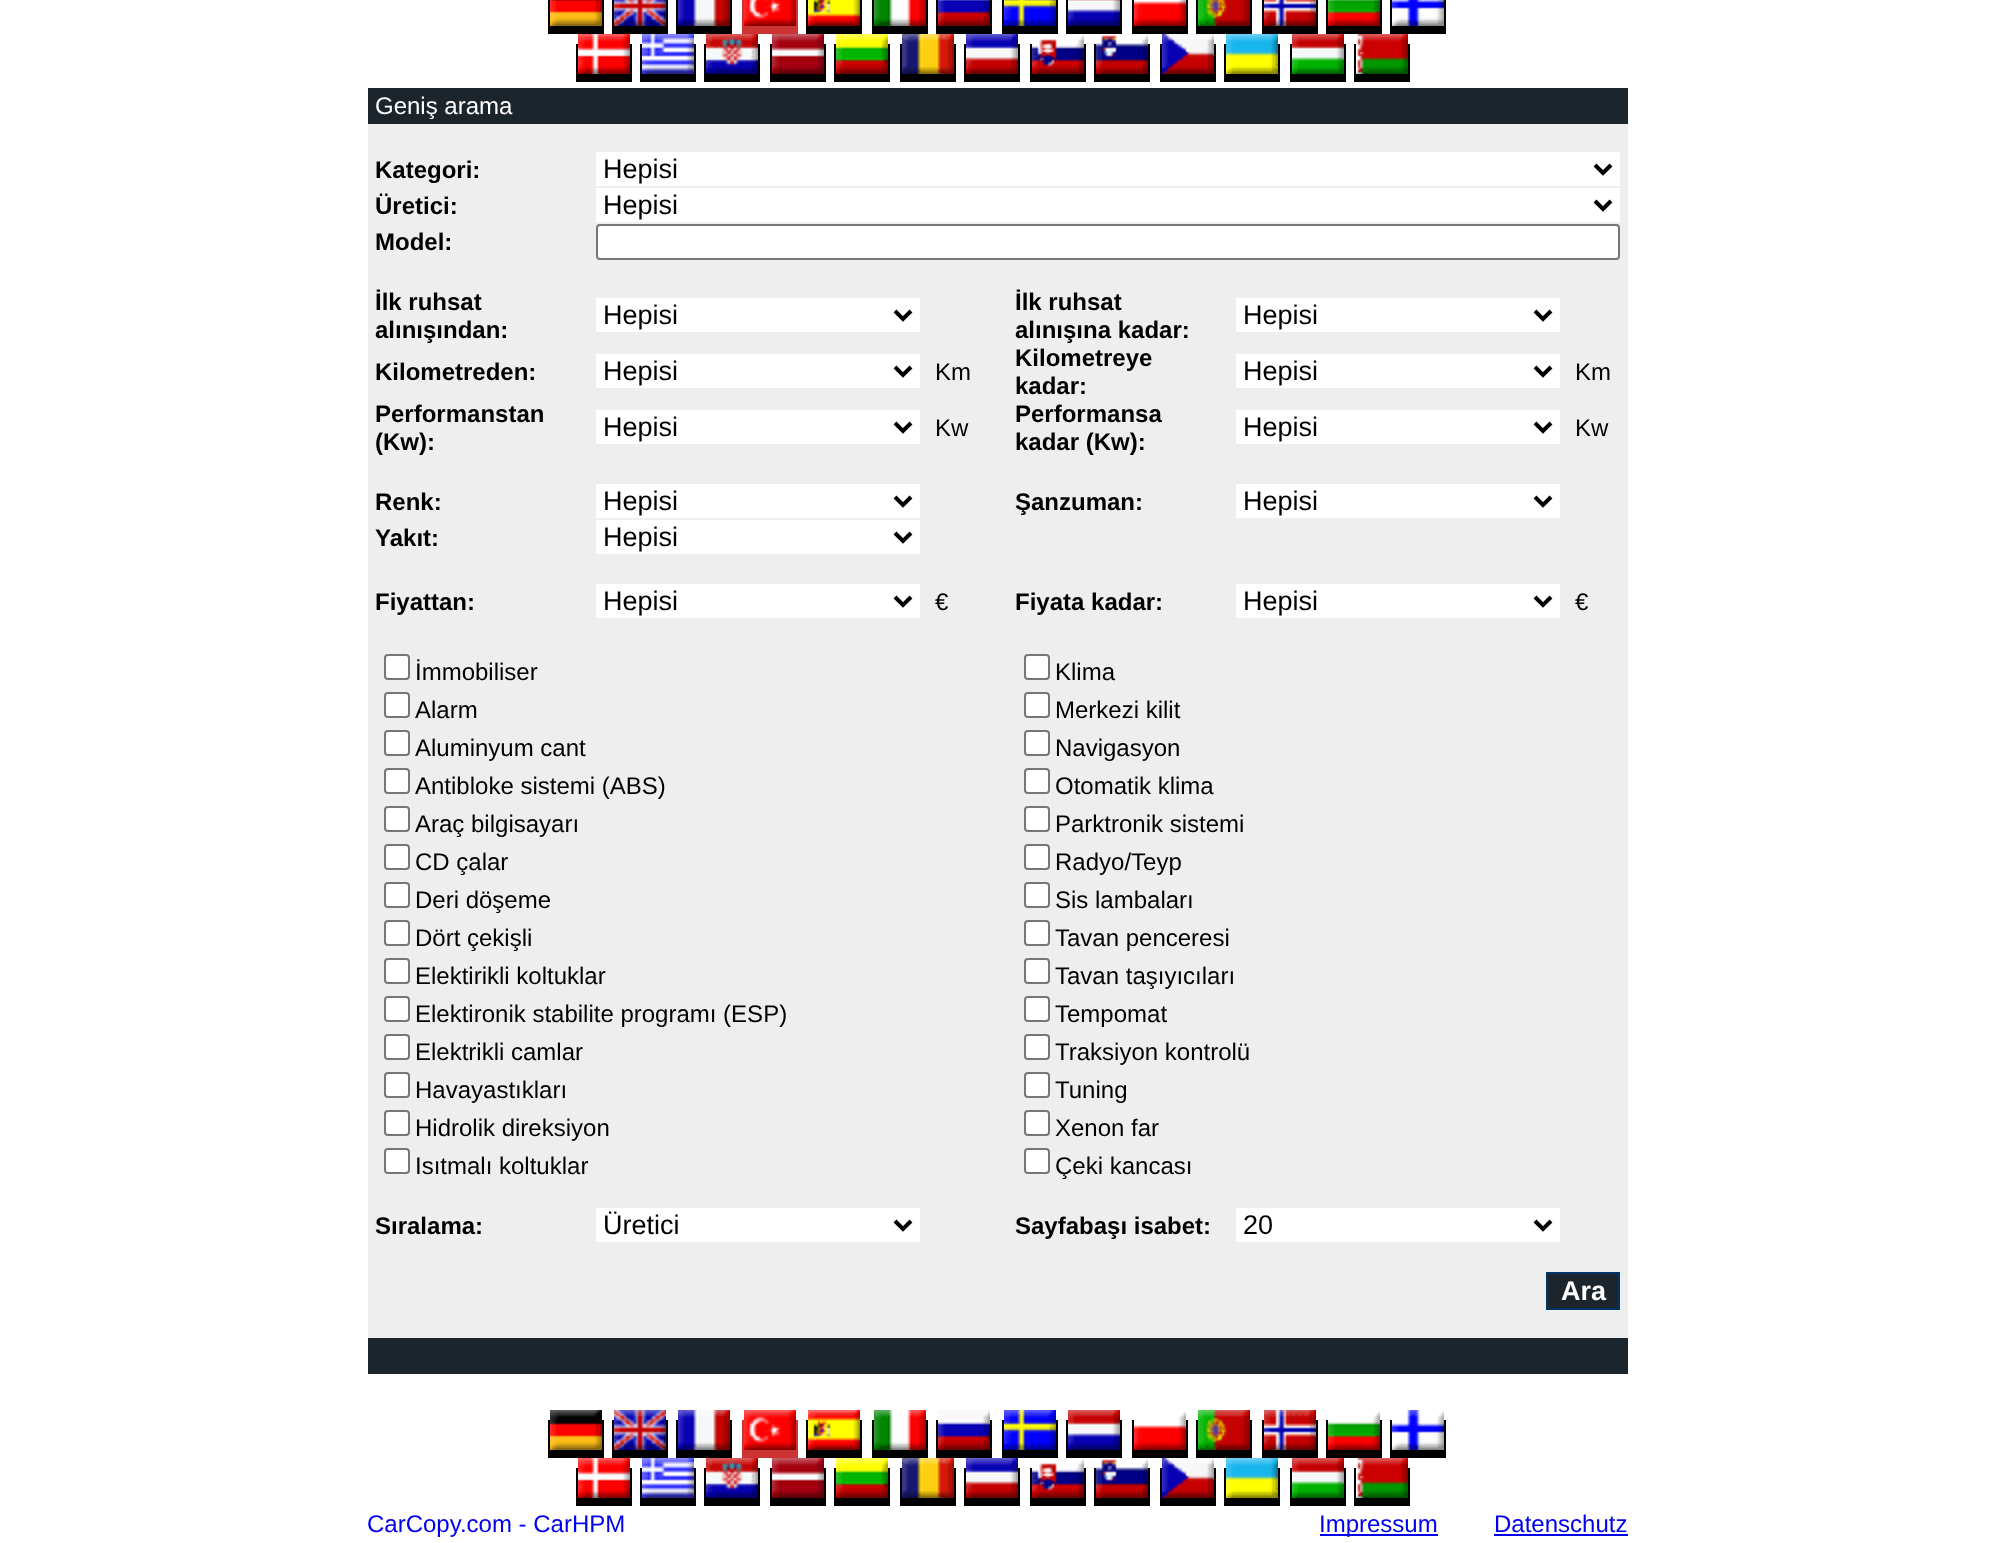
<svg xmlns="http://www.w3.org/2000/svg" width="1994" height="1543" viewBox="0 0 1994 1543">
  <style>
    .t1 { font: 24px Liberation Sans; fill: #fff; }
    .t2 { font: bold 24px Liberation Sans; fill: #000; }
    .t3 { font: 27px Liberation Sans; fill: #000; }
    .t4 { font: 24px Liberation Sans; fill: #000; }
    .t5 { font: bold 27px Liberation Sans; fill: #fff; }
    .t6 { font: 24px Liberation Sans; fill: #00e; }
  </style>
  <rect width="100%" height="100%" fill="#fff"/>
  <rect x="548" y="0" width="56" height="34" fill="#000"/>
  <image x="550" y="0" width="52" height="26" href="images/1.png"/>
  <rect x="612" y="0" width="56" height="34" fill="#000"/>
  <image x="614" y="0" width="52" height="26" href="images/2.png"/>
  <rect x="676" y="0" width="56" height="34" fill="#000"/>
  <image x="678" y="0" width="52" height="26" href="images/3.png"/>
  <rect x="742" y="0" width="56" height="34" fill="#c33"/>
  <image x="744" y="0" width="52" height="26" href="images/4.png"/>
  <rect x="806" y="0" width="56" height="34" fill="#000"/>
  <image x="808" y="0" width="52" height="26" href="images/5.png"/>
  <rect x="872" y="0" width="56" height="34" fill="#000"/>
  <image x="874" y="0" width="52" height="26" href="images/6.png"/>
  <rect x="936" y="0" width="56" height="34" fill="#000"/>
  <image x="938" y="0" width="52" height="26" href="images/7.png"/>
  <rect x="1002" y="0" width="56" height="34" fill="#000"/>
  <image x="1004" y="0" width="52" height="26" href="images/8.png"/>
  <rect x="1066" y="0" width="56" height="34" fill="#000"/>
  <image x="1068" y="0" width="52" height="26" href="images/9.png"/>
  <rect x="1132" y="0" width="56" height="34" fill="#000"/>
  <image x="1134" y="0" width="52" height="26" href="images/10.png"/>
  <rect x="1196" y="0" width="56" height="34" fill="#000"/>
  <image x="1198" y="0" width="52" height="26" href="images/11.png"/>
  <rect x="1262" y="0" width="56" height="34" fill="#000"/>
  <image x="1264" y="0" width="52" height="26" href="images/12.png"/>
  <rect x="1326" y="0" width="56" height="34" fill="#000"/>
  <image x="1328" y="0" width="52" height="26" href="images/13.png"/>
  <rect x="1390" y="0" width="56" height="34" fill="#000"/>
  <image x="1392" y="0" width="52" height="26" href="images/14.png"/>
  <rect x="576" y="44" width="56" height="38" fill="#000"/>
  <image x="578" y="34" width="52" height="40" href="images/15.png"/>
  <rect x="640" y="44" width="56" height="38" fill="#000"/>
  <image x="642" y="34" width="52" height="40" href="images/16.png"/>
  <rect x="704" y="44" width="56" height="38" fill="#000"/>
  <image x="706" y="34" width="52" height="40" href="images/17.png"/>
  <rect x="770" y="44" width="56" height="38" fill="#000"/>
  <image x="772" y="34" width="52" height="40" href="images/18.png"/>
  <rect x="834" y="44" width="56" height="38" fill="#000"/>
  <image x="836" y="34" width="52" height="40" href="images/19.png"/>
  <rect x="900" y="44" width="56" height="38" fill="#000"/>
  <image x="902" y="34" width="52" height="40" href="images/20.png"/>
  <rect x="964" y="44" width="56" height="38" fill="#000"/>
  <image x="966" y="34" width="52" height="40" href="images/21.png"/>
  <rect x="1030" y="44" width="56" height="38" fill="#000"/>
  <image x="1032" y="35" width="52" height="39" href="images/22.png"/>
  <rect x="1094" y="44" width="56" height="38" fill="#000"/>
  <image x="1096" y="35" width="52" height="39" href="images/23.png"/>
  <rect x="1160" y="44" width="56" height="38" fill="#000"/>
  <image x="1162" y="34" width="52" height="40" href="images/24.png"/>
  <rect x="1224" y="44" width="56" height="38" fill="#000"/>
  <image x="1226" y="34" width="52" height="40" href="images/25.png"/>
  <rect x="1290" y="44" width="56" height="38" fill="#000"/>
  <image x="1292" y="34" width="52" height="40" href="images/26.png"/>
  <rect x="1354" y="44" width="56" height="38" fill="#000"/>
  <image x="1356" y="34" width="52" height="40" href="images/27.png"/>
  <rect x="368" y="88" width="1260" height="36" fill="#1c252c"/>
  <text x="375" y="114" class="t1">Geniş arama</text>
  <rect x="368" y="124" width="1260" height="28" fill="#eee"/>
  <rect x="368" y="152" width="1260" height="36" fill="#eee"/>
  <text x="375" y="178" class="t2">Kategori:</text>
  <rect x="596" y="152" width="1024" height="34" fill="#fff"/>
  <path d="M1595 165L1603 173L1611 165" fill="none" stroke="#000" stroke-width="4"/>
  <text x="603" y="178" class="t3">Hepisi</text>
  <rect x="368" y="188" width="1260" height="36" fill="#eee"/>
  <text x="375" y="214" class="t2">Üretici:</text>
  <rect x="596" y="188" width="1024" height="34" fill="#fff"/>
  <path d="M1595 201L1603 209L1611 201" fill="none" stroke="#000" stroke-width="4"/>
  <text x="603" y="214" class="t3">Hepisi</text>
  <rect x="368" y="224" width="1260" height="64" fill="#eee"/>
  <text x="375" y="250" class="t2">Model:</text>
  <rect x="597" y="225" width="1022" height="34" rx="3" fill="#fff" stroke="#767676" stroke-width="2"/>
  <rect x="368" y="288" width="1260" height="56" fill="#eee"/>
  <text x="375" y="310" class="t2">İlk ruhsat</text>
  <text x="375" y="338" class="t2">alınışından:</text>
  <rect x="596" y="298" width="324" height="34" fill="#fff"/>
  <path d="M895 311L903 319L911 311" fill="none" stroke="#000" stroke-width="4"/>
  <text x="603" y="324" class="t3">Hepisi</text>
  <text x="1015" y="310" class="t2">İlk ruhsat</text>
  <text x="1015" y="338" class="t2">alınışına kadar:</text>
  <rect x="1236" y="298" width="324" height="34" fill="#fff"/>
  <path d="M1535 311L1543 319L1551 311" fill="none" stroke="#000" stroke-width="4"/>
  <text x="1243" y="324" class="t3">Hepisi</text>
  <rect x="368" y="344" width="1260" height="56" fill="#eee"/>
  <text x="375" y="380" class="t2">Kilometreden:</text>
  <rect x="596" y="354" width="324" height="34" fill="#fff"/>
  <path d="M895 367L903 375L911 367" fill="none" stroke="#000" stroke-width="4"/>
  <text x="603" y="380" class="t3">Hepisi</text>
  <text x="935" y="380" class="t4">Km</text>
  <text x="1015" y="366" class="t2">Kilometreye</text>
  <text x="1015" y="394" class="t2">kadar:</text>
  <rect x="1236" y="354" width="324" height="34" fill="#fff"/>
  <path d="M1535 367L1543 375L1551 367" fill="none" stroke="#000" stroke-width="4"/>
  <text x="1243" y="380" class="t3">Hepisi</text>
  <text x="1575" y="380" class="t4">Km</text>
  <rect x="368" y="400" width="1260" height="84" fill="#eee"/>
  <text x="375" y="422" class="t2">Performanstan</text>
  <text x="375" y="450" class="t2">(Kw):</text>
  <rect x="596" y="410" width="324" height="34" fill="#fff"/>
  <path d="M895 423L903 431L911 423" fill="none" stroke="#000" stroke-width="4"/>
  <text x="603" y="436" class="t3">Hepisi</text>
  <text x="935" y="436" class="t4">Kw</text>
  <text x="1015" y="422" class="t2">Performansa</text>
  <text x="1015" y="450" class="t2">kadar (Kw):</text>
  <rect x="1236" y="410" width="324" height="34" fill="#fff"/>
  <path d="M1535 423L1543 431L1551 423" fill="none" stroke="#000" stroke-width="4"/>
  <text x="1243" y="436" class="t3">Hepisi</text>
  <text x="1575" y="436" class="t4">Kw</text>
  <rect x="368" y="484" width="1260" height="36" fill="#eee"/>
  <text x="375" y="510" class="t2">Renk:</text>
  <rect x="596" y="484" width="324" height="34" fill="#fff"/>
  <path d="M895 497L903 505L911 497" fill="none" stroke="#000" stroke-width="4"/>
  <text x="603" y="510" class="t3">Hepisi</text>
  <text x="1015" y="510" class="t2">Şanzuman:</text>
  <rect x="1236" y="484" width="324" height="34" fill="#fff"/>
  <path d="M1535 497L1543 505L1551 497" fill="none" stroke="#000" stroke-width="4"/>
  <text x="1243" y="510" class="t3">Hepisi</text>
  <rect x="368" y="520" width="1260" height="64" fill="#eee"/>
  <text x="375" y="546" class="t2">Yakıt:</text>
  <rect x="596" y="520" width="324" height="34" fill="#fff"/>
  <path d="M895 533L903 541L911 533" fill="none" stroke="#000" stroke-width="4"/>
  <text x="603" y="546" class="t3">Hepisi</text>
  <rect x="368" y="584" width="1260" height="64" fill="#eee"/>
  <text x="375" y="610" class="t2">Fiyattan:</text>
  <rect x="596" y="584" width="324" height="34" fill="#fff"/>
  <path d="M895 597L903 605L911 597" fill="none" stroke="#000" stroke-width="4"/>
  <text x="603" y="610" class="t3">Hepisi</text>
  <text x="935" y="610" class="t4">€</text>
  <text x="1015" y="610" class="t2">Fiyata kadar:</text>
  <rect x="1236" y="584" width="324" height="34" fill="#fff"/>
  <path d="M1535 597L1543 605L1551 597" fill="none" stroke="#000" stroke-width="4"/>
  <text x="1243" y="610" class="t3">Hepisi</text>
  <text x="1575" y="610" class="t4">€</text>
  <rect x="368" y="648" width="1260" height="560" fill="#eee"/>
  <rect x="385" y="655" width="24" height="24" rx="3" fill="#fff" stroke="#767676" stroke-width="2"/>
  <text x="415" y="680" class="t4">İmmobiliser</text>
  <rect x="385" y="693" width="24" height="24" rx="3" fill="#fff" stroke="#767676" stroke-width="2"/>
  <text x="415" y="718" class="t4">Alarm</text>
  <rect x="385" y="731" width="24" height="24" rx="3" fill="#fff" stroke="#767676" stroke-width="2"/>
  <text x="415" y="756" class="t4">Aluminyum cant</text>
  <rect x="385" y="769" width="24" height="24" rx="3" fill="#fff" stroke="#767676" stroke-width="2"/>
  <text x="415" y="794" class="t4">Antibloke sistemi (ABS)</text>
  <rect x="385" y="807" width="24" height="24" rx="3" fill="#fff" stroke="#767676" stroke-width="2"/>
  <text x="415" y="832" class="t4">Araç bilgisayarı</text>
  <rect x="385" y="845" width="24" height="24" rx="3" fill="#fff" stroke="#767676" stroke-width="2"/>
  <text x="415" y="870" class="t4">CD çalar</text>
  <rect x="385" y="883" width="24" height="24" rx="3" fill="#fff" stroke="#767676" stroke-width="2"/>
  <text x="415" y="908" class="t4">Deri döşeme</text>
  <rect x="385" y="921" width="24" height="24" rx="3" fill="#fff" stroke="#767676" stroke-width="2"/>
  <text x="415" y="946" class="t4">Dört çekişli</text>
  <rect x="385" y="959" width="24" height="24" rx="3" fill="#fff" stroke="#767676" stroke-width="2"/>
  <text x="415" y="984" class="t4">Elektirikli koltuklar</text>
  <rect x="385" y="997" width="24" height="24" rx="3" fill="#fff" stroke="#767676" stroke-width="2"/>
  <text x="415" y="1022" class="t4">Elektironik stabilite programı (ESP)</text>
  <rect x="385" y="1035" width="24" height="24" rx="3" fill="#fff" stroke="#767676" stroke-width="2"/>
  <text x="415" y="1060" class="t4">Elektrikli camlar</text>
  <rect x="385" y="1073" width="24" height="24" rx="3" fill="#fff" stroke="#767676" stroke-width="2"/>
  <text x="415" y="1098" class="t4">Havayastıkları</text>
  <rect x="385" y="1111" width="24" height="24" rx="3" fill="#fff" stroke="#767676" stroke-width="2"/>
  <text x="415" y="1136" class="t4">Hidrolik direksiyon</text>
  <rect x="385" y="1149" width="24" height="24" rx="3" fill="#fff" stroke="#767676" stroke-width="2"/>
  <text x="415" y="1174" class="t4">Isıtmalı koltuklar</text>
  <rect x="1025" y="655" width="24" height="24" rx="3" fill="#fff" stroke="#767676" stroke-width="2"/>
  <text x="1055" y="680" class="t4">Klima</text>
  <rect x="1025" y="693" width="24" height="24" rx="3" fill="#fff" stroke="#767676" stroke-width="2"/>
  <text x="1055" y="718" class="t4">Merkezi kilit</text>
  <rect x="1025" y="731" width="24" height="24" rx="3" fill="#fff" stroke="#767676" stroke-width="2"/>
  <text x="1055" y="756" class="t4">Navigasyon</text>
  <rect x="1025" y="769" width="24" height="24" rx="3" fill="#fff" stroke="#767676" stroke-width="2"/>
  <text x="1055" y="794" class="t4">Otomatik klima</text>
  <rect x="1025" y="807" width="24" height="24" rx="3" fill="#fff" stroke="#767676" stroke-width="2"/>
  <text x="1055" y="832" class="t4">Parktronik sistemi</text>
  <rect x="1025" y="845" width="24" height="24" rx="3" fill="#fff" stroke="#767676" stroke-width="2"/>
  <text x="1055" y="870" class="t4">Radyo/Teyp</text>
  <rect x="1025" y="883" width="24" height="24" rx="3" fill="#fff" stroke="#767676" stroke-width="2"/>
  <text x="1055" y="908" class="t4">Sis lambaları</text>
  <rect x="1025" y="921" width="24" height="24" rx="3" fill="#fff" stroke="#767676" stroke-width="2"/>
  <text x="1055" y="946" class="t4">Tavan penceresi</text>
  <rect x="1025" y="959" width="24" height="24" rx="3" fill="#fff" stroke="#767676" stroke-width="2"/>
  <text x="1055" y="984" class="t4">Tavan taşıyıcıları</text>
  <rect x="1025" y="997" width="24" height="24" rx="3" fill="#fff" stroke="#767676" stroke-width="2"/>
  <text x="1055" y="1022" class="t4">Tempomat</text>
  <rect x="1025" y="1035" width="24" height="24" rx="3" fill="#fff" stroke="#767676" stroke-width="2"/>
  <text x="1055" y="1060" class="t4">Traksiyon kontrolü</text>
  <rect x="1025" y="1073" width="24" height="24" rx="3" fill="#fff" stroke="#767676" stroke-width="2"/>
  <text x="1055" y="1098" class="t4">Tuning</text>
  <rect x="1025" y="1111" width="24" height="24" rx="3" fill="#fff" stroke="#767676" stroke-width="2"/>
  <text x="1055" y="1136" class="t4">Xenon far</text>
  <rect x="1025" y="1149" width="24" height="24" rx="3" fill="#fff" stroke="#767676" stroke-width="2"/>
  <text x="1055" y="1174" class="t4">Çeki kancası</text>
  <rect x="368" y="1208" width="1260" height="64" fill="#eee"/>
  <text x="375" y="1234" class="t2">Sıralama:</text>
  <rect x="596" y="1208" width="324" height="34" fill="#fff"/>
  <path d="M895 1221L903 1229L911 1221" fill="none" stroke="#000" stroke-width="4"/>
  <text x="603" y="1234" class="t3">Üretici</text>
  <text x="1015" y="1234" class="t2">Sayfabaşı isabet:</text>
  <rect x="1236" y="1208" width="324" height="34" fill="#fff"/>
  <path d="M1535 1221L1543 1229L1551 1221" fill="none" stroke="#000" stroke-width="4"/>
  <text x="1243" y="1234" class="t3">20</text>
  <rect x="368" y="1272" width="1260" height="66" fill="#eee"/>
  <rect x="1547" y="1273" width="72" height="36" fill="#1c252c" stroke="#036" stroke-width="2"/>
  <text x="1561" y="1300" class="t5">Ara</text>
  <rect x="368" y="1338" width="1260" height="36" fill="#1c252c"/>
  <rect x="548" y="1420" width="56" height="38" fill="#000"/>
  <image x="550" y="1410" width="52" height="40" href="images/28.png"/>
  <rect x="612" y="1420" width="56" height="38" fill="#000"/>
  <image x="614" y="1410" width="52" height="40" href="images/29.png"/>
  <rect x="676" y="1420" width="56" height="38" fill="#000"/>
  <image x="678" y="1410" width="52" height="40" href="images/30.png"/>
  <rect x="742" y="1420" width="56" height="38" fill="#c33"/>
  <image x="744" y="1410" width="52" height="40" href="images/31.png"/>
  <rect x="806" y="1420" width="56" height="38" fill="#000"/>
  <image x="808" y="1410" width="52" height="40" href="images/32.png"/>
  <rect x="872" y="1420" width="56" height="38" fill="#000"/>
  <image x="874" y="1410" width="52" height="40" href="images/33.png"/>
  <rect x="936" y="1420" width="56" height="38" fill="#000"/>
  <image x="938" y="1410" width="52" height="40" href="images/34.png"/>
  <rect x="1002" y="1420" width="56" height="38" fill="#000"/>
  <image x="1004" y="1410" width="52" height="40" href="images/35.png"/>
  <rect x="1066" y="1420" width="56" height="38" fill="#000"/>
  <image x="1068" y="1410" width="52" height="40" href="images/36.png"/>
  <rect x="1132" y="1420" width="56" height="38" fill="#000"/>
  <image x="1134" y="1411" width="52" height="39" href="images/37.png"/>
  <rect x="1196" y="1420" width="56" height="38" fill="#000"/>
  <image x="1198" y="1410" width="52" height="40" href="images/38.png"/>
  <rect x="1262" y="1420" width="56" height="38" fill="#000"/>
  <image x="1264" y="1410" width="52" height="40" href="images/39.png"/>
  <rect x="1326" y="1420" width="56" height="38" fill="#000"/>
  <image x="1328" y="1411" width="52" height="39" href="images/40.png"/>
  <rect x="1390" y="1420" width="56" height="38" fill="#000"/>
  <image x="1392" y="1410" width="52" height="40" href="images/41.png"/>
  <rect x="576" y="1468" width="56" height="38" fill="#000"/>
  <image x="578" y="1458" width="52" height="40" href="images/15.png"/>
  <rect x="640" y="1468" width="56" height="38" fill="#000"/>
  <image x="642" y="1458" width="52" height="40" href="images/16.png"/>
  <rect x="704" y="1468" width="56" height="38" fill="#000"/>
  <image x="706" y="1458" width="52" height="40" href="images/17.png"/>
  <rect x="770" y="1468" width="56" height="38" fill="#000"/>
  <image x="772" y="1458" width="52" height="40" href="images/18.png"/>
  <rect x="834" y="1468" width="56" height="38" fill="#000"/>
  <image x="836" y="1458" width="52" height="40" href="images/19.png"/>
  <rect x="900" y="1468" width="56" height="38" fill="#000"/>
  <image x="902" y="1458" width="52" height="40" href="images/20.png"/>
  <rect x="964" y="1468" width="56" height="38" fill="#000"/>
  <image x="966" y="1458" width="52" height="40" href="images/21.png"/>
  <rect x="1030" y="1468" width="56" height="38" fill="#000"/>
  <image x="1032" y="1459" width="52" height="39" href="images/22.png"/>
  <rect x="1094" y="1468" width="56" height="38" fill="#000"/>
  <image x="1096" y="1459" width="52" height="39" href="images/23.png"/>
  <rect x="1160" y="1468" width="56" height="38" fill="#000"/>
  <image x="1162" y="1458" width="52" height="40" href="images/24.png"/>
  <rect x="1224" y="1468" width="56" height="38" fill="#000"/>
  <image x="1226" y="1458" width="52" height="40" href="images/25.png"/>
  <rect x="1290" y="1468" width="56" height="38" fill="#000"/>
  <image x="1292" y="1458" width="52" height="40" href="images/26.png"/>
  <rect x="1354" y="1468" width="56" height="38" fill="#000"/>
  <image x="1356" y="1458" width="52" height="40" href="images/27.png"/>
  <text x="367" y="1532" class="t6">CarCopy.com - CarHPM</text>
  <rect x="1320" y="1534" width="118" height="2" fill="#00e"/>
  <text x="1319" y="1532" class="t6">Impressum</text>
  <text x="1494" y="1532" class="t6">Datenschutz</text>
  <rect x="1494" y="1534" width="134" height="2" fill="#00e"/>
</svg>
